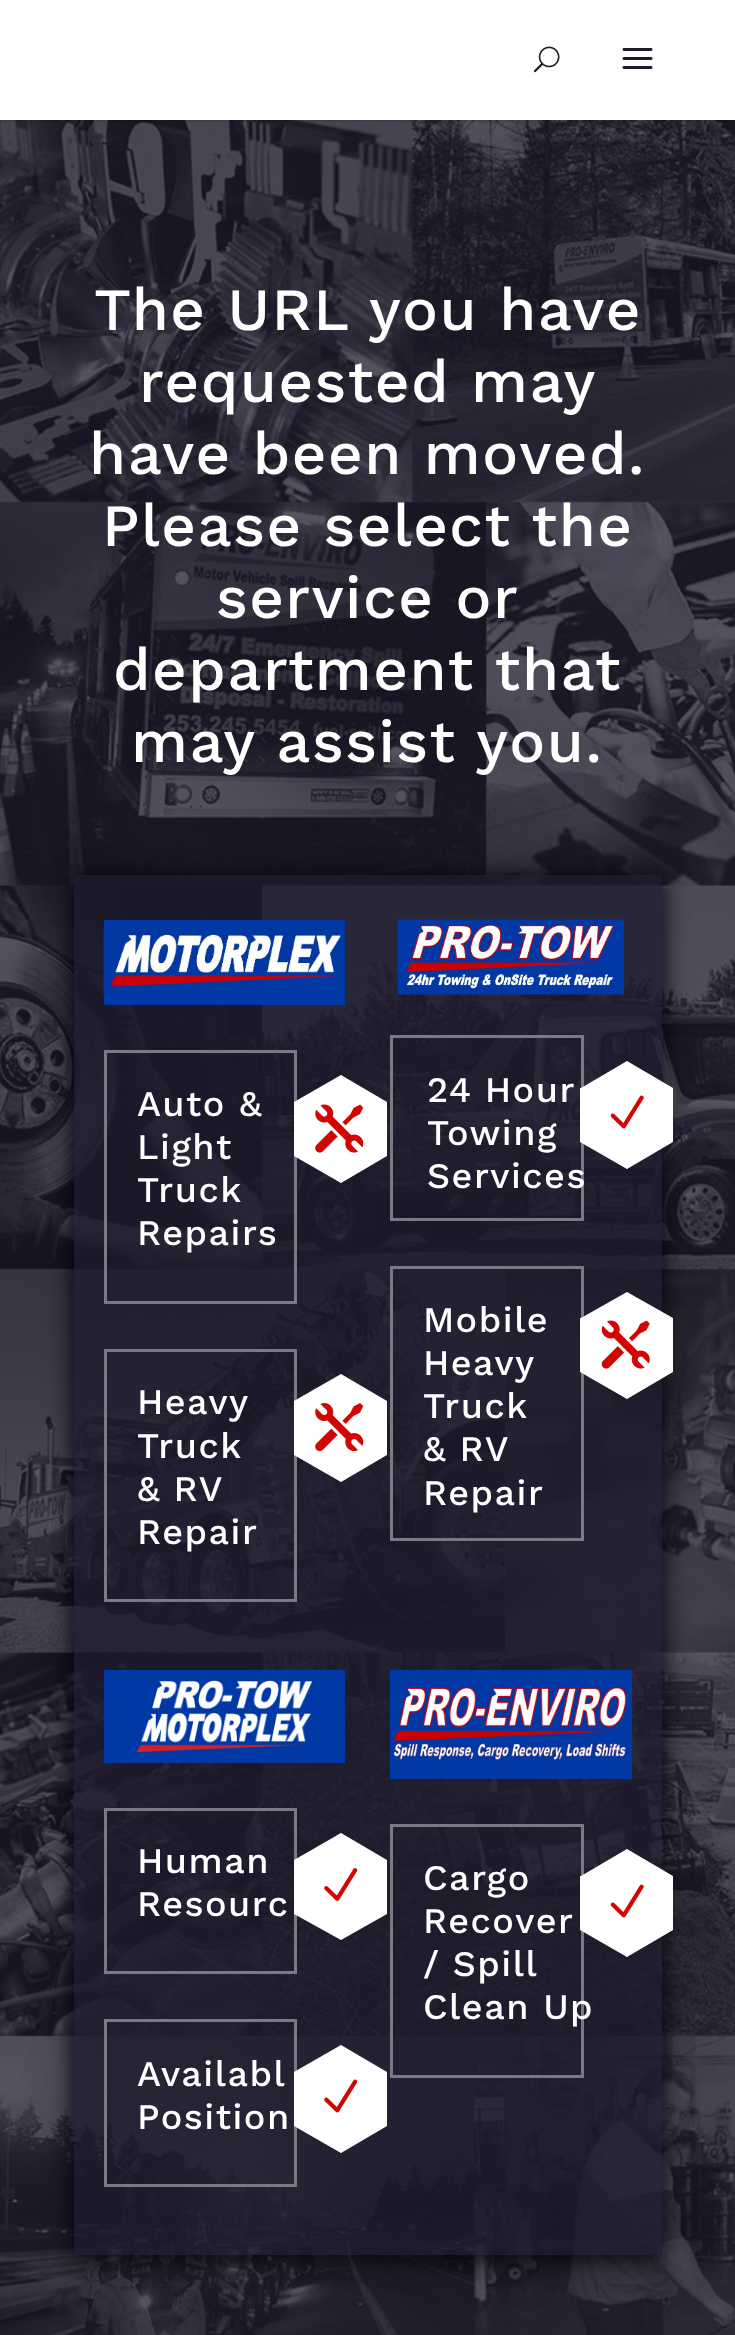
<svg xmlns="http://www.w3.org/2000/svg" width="735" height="2335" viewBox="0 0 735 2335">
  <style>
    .t1 { font: 500 60px Work Sans; letter-spacing: 1.5px; fill: #fff; }
    .t2 { font: 500 36px Work Sans; letter-spacing: 1.5px; fill: #fff; }
  </style>
  <defs>
    <clipPath id="clip1"><path d="M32 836H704V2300H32ZM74 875H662V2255H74Z" clip-rule="evenodd"/></clipPath>
  </defs>
  <rect width="100%" height="100%" fill="#fff"/>
  <image x="0" y="120" width="735" height="2215" href="images/3.png"/>
  <rect x="0" y="120" width="735" height="2" fill="#0000001a"/>
  <image x="533" y="46" width="27" height="27" href="images/1.png"/>
  <image x="622" y="48" width="31" height="21" href="images/2.png"/>
  <text x="94" y="330" class="t1">The URL you have</text>
  <text x="139" y="402" class="t1">requested may</text>
  <text x="89" y="474" class="t1">have been moved.</text>
  <text x="102" y="546" class="t1">Please select the</text>
  <text x="216" y="618" class="t1">service or</text>
  <text x="113" y="690" class="t1">department that</text>
  <text x="131" y="762" class="t1">may assist you.</text>
  <g clip-path="url(#clip1)">
    <rect x="74" y="878" width="588" height="1380" fill="#000" filter="blur(13.5px)"/>
  </g>
  <rect x="74" y="875" width="588" height="1380" fill="#1c1a2cbf"/>
  <rect x="104" y="920" width="241" height="85" fill="#0038a5"/>
  <image x="103" y="928" width="239" height="68" href="images/4.png"/>
  <rect x="105.5" y="1051.5" width="190" height="251" fill="none" stroke="#7b7983" stroke-width="3"/>
  <text x="137" y="1116" class="t2">Auto &amp;</text>
  <text x="137" y="1159" class="t2">Light</text>
  <text x="137" y="1202" class="t2">Truck</text>
  <text x="137" y="1245" class="t2">Repairs</text>
  <path d="M341 1075L387 1102L341 1183L294 1156Z" fill="#fff"/>
  <rect x="294" y="1102" width="93" height="54" fill="#fff"/>
  <path d="M294 1102L341 1075L387 1156L341 1183Z" fill="#fff"/>
  <image x="315" y="1104" width="49" height="49" href="images/5.png"/>
  <rect x="105.5" y="1350.5" width="190" height="250" fill="none" stroke="#7b7983" stroke-width="3"/>
  <text x="137" y="1414" class="t2">Heavy</text>
  <text x="137" y="1458" class="t2">Truck</text>
  <text x="137" y="1501" word-spacing="-1" class="t2">&amp; RV</text>
  <text x="137" y="1544" class="t2">Repair</text>
  <path d="M341 1374L387 1401L341 1482L294 1455Z" fill="#fff"/>
  <rect x="294" y="1401" width="93" height="54" fill="#fff"/>
  <path d="M294 1401L341 1374L387 1455L341 1482Z" fill="#fff"/>
  <image x="315" y="1403" width="49" height="49" href="images/6.png"/>
  <image x="397" y="919" width="227" height="76" href="images/7.png"/>
  <rect x="391.5" y="1036.5" width="191" height="183" fill="none" stroke="#7b7983" stroke-width="3"/>
  <text x="427" y="1102" word-spacing="-1" class="t2">24 Hour</text>
  <text x="427" y="1145" class="t2">Towing</text>
  <text x="427" y="1188" class="t2">Services</text>
  <path d="M627 1061L673 1088L627 1169L580 1142Z" fill="#fff"/>
  <rect x="580" y="1088" width="93" height="54" fill="#fff"/>
  <path d="M581 1088L627 1061L673 1142L627 1169Z" fill="#fff"/>
  <image x="610" y="1095" width="34" height="34" href="images/8.png"/>
  <rect x="391.5" y="1267.5" width="191" height="272" fill="none" stroke="#7b7983" stroke-width="3"/>
  <text x="423" y="1332" class="t2">Mobile</text>
  <text x="423" y="1375" class="t2">Heavy</text>
  <text x="423" y="1418" class="t2">Truck</text>
  <text x="423" y="1461" word-spacing="-1" class="t2">&amp; RV</text>
  <text x="423" y="1505" class="t2">Repair</text>
  <path d="M627 1292L673 1318L627 1399L580 1372Z" fill="#fff"/>
  <rect x="580" y="1318" width="93" height="54" fill="#fff"/>
  <path d="M581 1318L627 1292L673 1372L627 1399Z" fill="#fff"/>
  <image x="601" y="1320" width="49" height="49" href="images/9.png"/>
  <rect x="104" y="1670" width="241" height="93" fill="#0038a5"/>
  <image x="136" y="1680" width="176" height="72" href="images/10.png"/>
  <rect x="105.5" y="1809.5" width="190" height="163" fill="none" stroke="#7b7983" stroke-width="3"/>
  <text x="137" y="1873" class="t2">Human</text>
  <text x="137" y="1916" class="t2">Resourc</text>
  <path d="M341 1833L387 1860L341 1940L294 1914Z" fill="#fff"/>
  <rect x="294" y="1860" width="93" height="54" fill="#fff"/>
  <path d="M294 1860L341 1833L387 1914L341 1940Z" fill="#fff"/>
  <image x="324" y="1868" width="34" height="33" href="images/11.png"/>
  <rect x="105.5" y="2020.5" width="190" height="165" fill="none" stroke="#7b7983" stroke-width="3"/>
  <text x="137" y="2086" class="t2">Availabl</text>
  <text x="137" y="2129" class="t2">Position</text>
  <path d="M341 2045L387 2072L341 2153L294 2126Z" fill="#fff"/>
  <rect x="294" y="2072" width="93" height="54" fill="#fff"/>
  <path d="M294 2072L341 2045L387 2126L341 2153Z" fill="#fff"/>
  <image x="324" y="2079" width="34" height="34" href="images/12.png"/>
  <rect x="390" y="1670" width="242" height="109" fill="#0038a5"/>
  <image x="393" y="1686" width="234" height="74" href="images/13.png"/>
  <rect x="391.5" y="1825.5" width="191" height="251" fill="none" stroke="#7b7983" stroke-width="3"/>
  <text x="423" y="1890" class="t2">Cargo</text>
  <text x="423" y="1933" class="t2">Recover</text>
  <text x="423" y="1976" word-spacing="-1" class="t2">/ Spill</text>
  <text x="423" y="2019" class="t2">Clean Up</text>
  <path d="M627 1849L673 1876L627 1957L580 1930Z" fill="#fff"/>
  <rect x="580" y="1876" width="93" height="54" fill="#fff"/>
  <path d="M581 1876L627 1849L673 1930L627 1957Z" fill="#fff"/>
  <image x="610" y="1884" width="34" height="34" href="images/8.png"/>
</svg>
